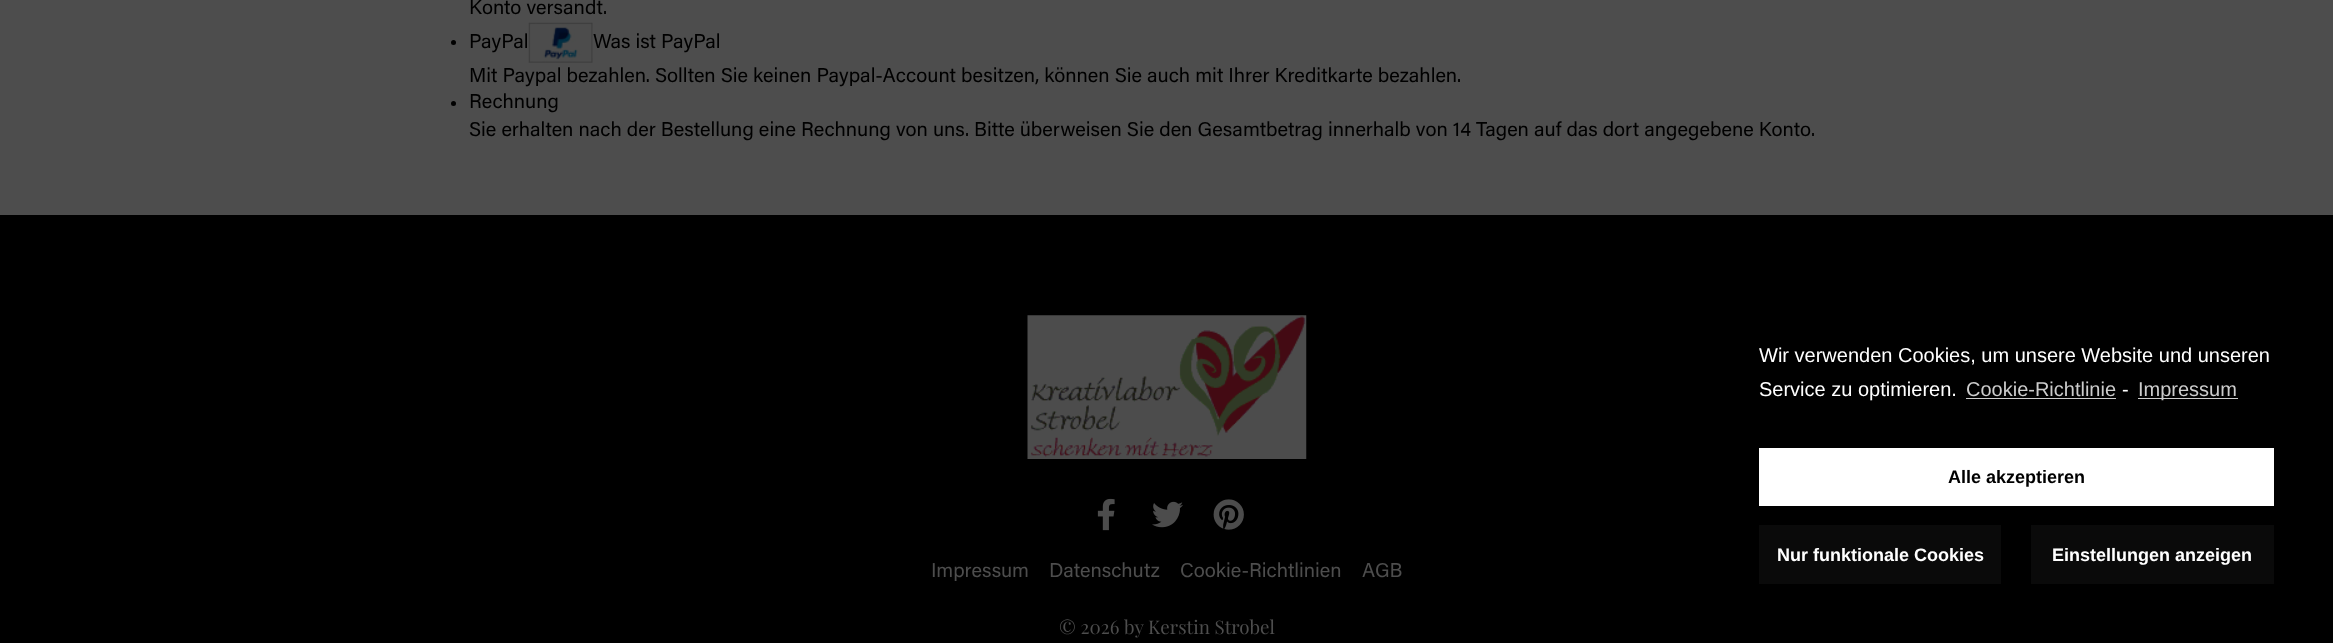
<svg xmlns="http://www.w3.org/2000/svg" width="2333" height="643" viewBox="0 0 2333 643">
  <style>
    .t1 { font: 20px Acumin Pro; fill: #000; }
    .t2 { font: 20px Liberation Sans; fill: #fff; }
    .t3 { font: 20px Liberation Sans; fill: #ccc; }
    .t4 { font: bold 18px Liberation Sans; fill: #000; }
    .t5 { font: bold 18px Liberation Sans; fill: #fff; }
    .t6 { font: 20px Acumin Pro; fill: #4d4d4d; }
    .t7 { font: 18.75px Playfair Display; fill: #4d4d4d; }
  </style>
  <rect width="100%" height="100%" fill="#4d4d4d"/>
  <text x="469" y="14" class="t1">Konto versandt.</text>
  <circle cx="453.5" cy="42.5" r="2.5" fill="#000"/>
  <text x="469" y="48" class="t1">PayPal</text>
  <image x="528" y="22" width="65" height="41" href="images/1.png"/>
  <text x="593" y="48" class="t1">Was ist PayPal</text>
  <text x="469" y="82" class="t1">Mit Paypal bezahlen. Sollten Sie keinen Paypal-Account besitzen, können Sie auch mit Ihrer Kreditkarte bezahlen.</text>
  <circle cx="453.5" cy="103.5" r="2.5" fill="#000"/>
  <text x="469" y="108" class="t1">Rechnung</text>
  <text x="469" y="136" class="t1">Sie erhalten nach der Bestellung eine Rechnung von uns. Bitte überweisen Sie den Gesamtbetrag innerhalb von 14 Tagen auf das dort angegebene Konto.</text>
  <rect x="0" y="215" width="2333" height="428" fill="#000"/>
  <text x="1759" y="362" class="t2">Wir verwenden Cookies, um unsere Website und unseren</text>
  <text x="1759" y="396" class="t2">Service zu optimieren.</text>
  <text x="1966" y="396" class="t3">Cookie-Richtlinie</text>
  <rect x="1966" y="398" width="150" height="1" fill="#ccc"/>
  <text x="2122" y="396" class="t2">-</text>
  <rect x="2138" y="398" width="100" height="1" fill="#ccc"/>
  <text x="2138" y="396" class="t3">Impressum</text>
  <rect x="1759" y="448" width="515" height="58" fill="#fff"/>
  <text x="1948" y="483" class="t4">Alle akzeptieren</text>
  <rect x="1759" y="525" width="242" height="59" fill="#0a0a0a"/>
  <text x="1777" y="561" class="t5">Nur funktionale Cookies</text>
  <rect x="2031" y="525" width="243" height="59" fill="#0a0a0a"/>
  <text x="2052" y="561" class="t5">Einstellungen anzeigen</text>
  <image x="1027" y="315" width="280" height="144" href="images/2.png"/>
  <image x="1097" y="498" width="18" height="33" href="images/3.png"/>
  <image x="1152" y="501" width="31" height="27" href="images/4.png"/>
  <image x="1213" y="499" width="31" height="31" href="images/5.png"/>
  <text x="931" y="577" class="t6">Impressum</text>
  <text x="1049" y="577" class="t6">Datenschutz</text>
  <text x="1180" y="577" class="t6">Cookie-Richtlinien</text>
  <text x="1362" y="577" class="t6">AGB</text>
  <text x="1059" y="634" class="t7">© 2026 by Kerstin Strobel</text>
</svg>
